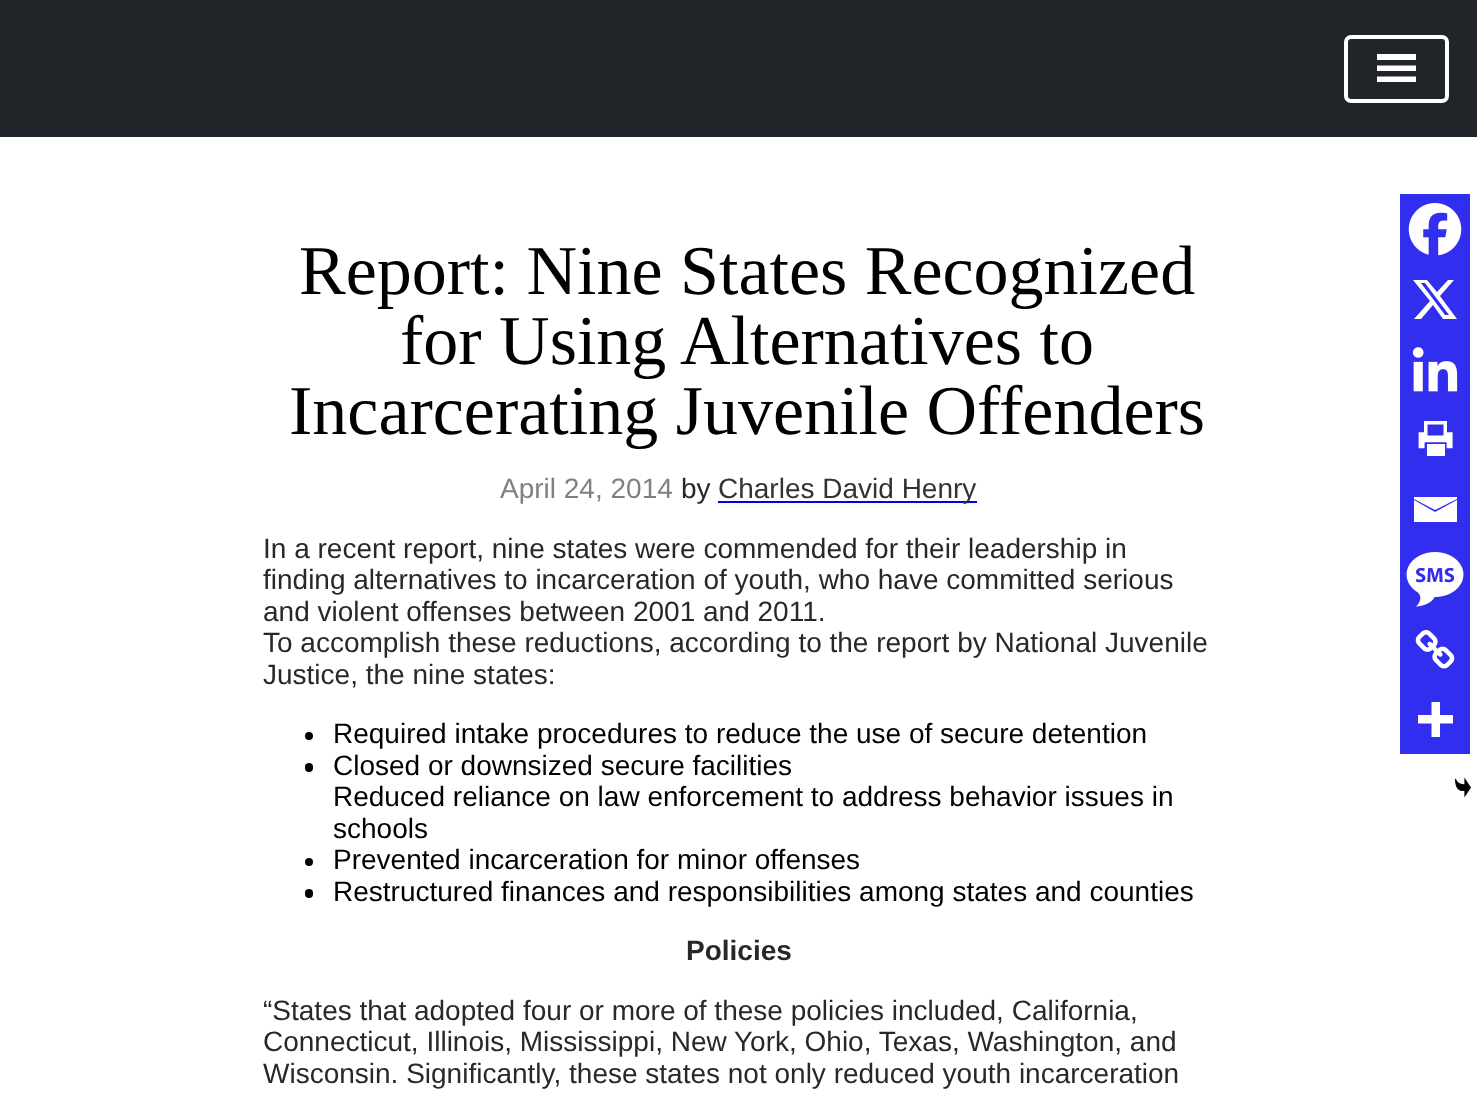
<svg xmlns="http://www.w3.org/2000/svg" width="1477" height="1100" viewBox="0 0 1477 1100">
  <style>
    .t1 { font: 70px Liberation Serif; fill: #000; }
    .t2 { font: 28px Liberation Sans; fill: #808080; }
    .t3 { font: 28px Liberation Sans; fill: #282828; }
    .t4 { font: 28px Liberation Sans; fill: #333; }
    .t5 { font: 28px Liberation Sans; fill: #000; }
    .t6 { font: bold 28px Liberation Sans; fill: #282828; }
  </style>
  <rect width="100%" height="100%" fill="#fff"/>
  <rect x="0" y="0" width="1477" height="137" fill="#212529"/>
  <rect x="1346" y="37" width="101" height="64" rx="5" fill="none" stroke="#fff" stroke-width="4"/>
  <path d="M1377 82H1416V76.5H1377ZM1377 54V60H1416V54ZM1377 71H1416V65.5H1377Z" fill="#fff"/>
  <text x="299" y="294" class="t1">Report: Nine States Recognized</text>
  <text x="400" y="364" class="t1">for Using Alternatives to</text>
  <text x="289" y="434" class="t1">Incarcerating Juvenile Offenders</text>
  <text x="500" y="498" class="t2">April 24, 2014</text>
  <text x="681" y="498" class="t3">by</text>
  <rect x="718" y="501" width="259" height="2" fill="#00e"/>
  <text x="718" y="498" class="t4">Charles David Henry</text>
  <text x="263" y="558" class="t3">In a recent report, nine states were commended for their leadership in</text>
  <text x="263" y="589" class="t3">finding alternatives to incarceration of youth, who have committed serious</text>
  <text x="263" y="621" class="t3">and violent offenses between 2001 and 2011.</text>
  <text x="263" y="652" class="t3">To accomplish these reductions, according to the report by National Juvenile</text>
  <text x="263" y="684" class="t3">Justice, the nine states:</text>
  <rect x="1400" y="194" width="70" height="560" fill="#322ef0"/>
  <image x="1408" y="203" width="54" height="53" href="images/1.png"/>
  <path d="M1448 280H1454L1440 296L1457 319H1443L1433 305L1421 319H1414L1430 301L1413 280H1427L1437 292ZM1445 315H1449L1425 283H1421Z" fill="#fff"/>
  <image x="1412" y="347" width="46" height="45" href="images/2.png"/>
  <image x="1418" y="421" width="35" height="35" href="images/3.png"/>
  <path d="M1412 497H1457V499L1435 510L1414 499V497M1414 500L1435 512L1457 500V522H1414V500" fill="#fff"/>
  <image x="1406" y="552" width="58" height="55" href="images/4.png"/>
  <image x="1415" y="630" width="40" height="39" href="images/5.png"/>
  <path d="M1440 715V702H1431.5V715H1418V723.5H1431.5V737H1440V723.5H1453V715Z" fill="#fff" fill-rule="evenodd"/>
  <image x="1455" y="777" width="16" height="21" href="images/6.png"/>
  <circle cx="309" cy="736" r="4" fill="#000"/>
  <text x="333" y="743" class="t5">Required intake procedures to reduce the use of secure detention</text>
  <rect x="305" y="763" width="8" height="9" rx="4" fill="#000"/>
  <text x="333" y="775" class="t5">Closed or downsized secure facilities</text>
  <text x="333" y="806" class="t5">Reduced reliance on law enforcement to address behavior issues in</text>
  <text x="333" y="838" class="t5">schools</text>
  <circle cx="309" cy="862" r="4" fill="#000"/>
  <text x="333" y="869" class="t5">Prevented incarceration for minor offenses</text>
  <rect x="305" y="889" width="8" height="9" rx="4" fill="#000"/>
  <text x="333" y="901" class="t5">Restructured finances and responsibilities among states and counties</text>
  <text x="686" y="960" class="t6">Policies</text>
  <text x="263" y="1020" class="t3">“States that adopted four or more of these policies included, California,</text>
  <text x="263" y="1051" class="t3">Connecticut, Illinois, Mississippi, New York, Ohio, Texas, Washington, and</text>
  <text x="263" y="1083" class="t3">Wisconsin. Significantly, these states not only reduced youth incarceration</text>
</svg>
